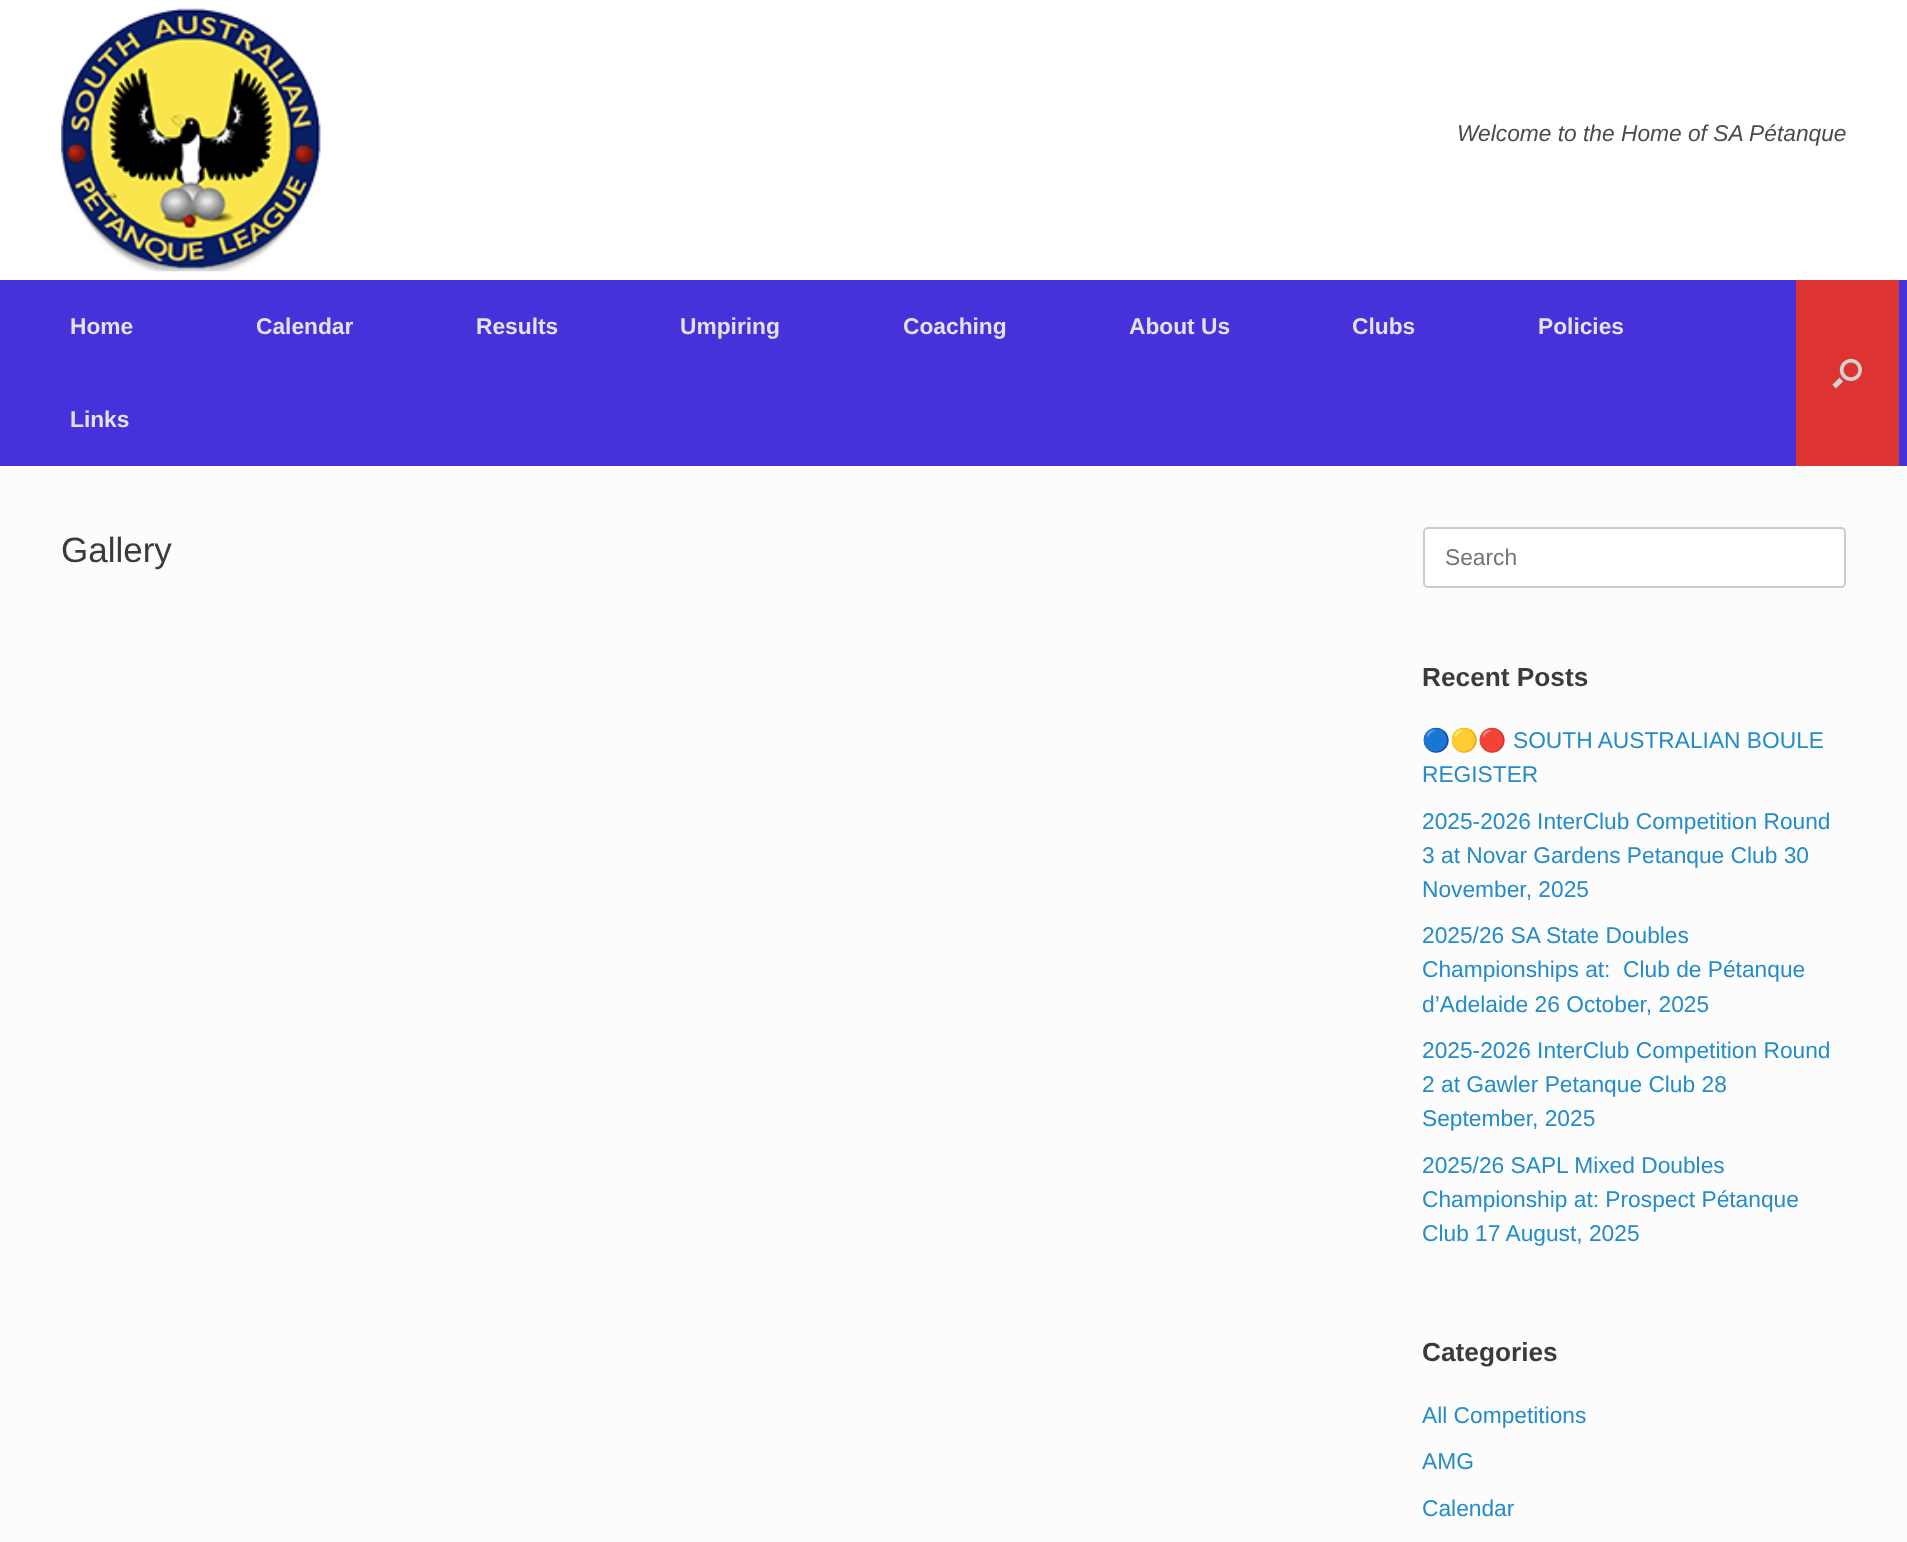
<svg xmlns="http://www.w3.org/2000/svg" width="1907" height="1542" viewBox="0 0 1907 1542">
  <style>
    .t1 { font: italic 22.75px Liberation Sans; fill: #4b4b4b; }
    .t2 { font: bold 22.75px Liberation Sans; fill: #e2e2e2; }
    .t3 { font: 35px Liberation Sans; fill: #3b3b3b; }
    .t4 { font: 22.75px Liberation Sans; fill: #757575; }
    .t5 { font: bold 26.25px Liberation Sans; fill: #3b3b3b; }
    .t6 { font: 22.75px Noto Color Emoji; fill: #248cc8; }
    .t7 { font: 22.75px Liberation Sans; fill: #248cc8; }
  </style>
  <rect width="100%" height="100%" fill="#fff"/>
  <image x="61" y="8" width="260" height="264" href="images/1.png"/>
  <text x="1457" y="141" class="t1">Welcome to the Home of SA Pétanque</text>
  <rect x="0" y="280" width="1907" height="186" fill="#4632db"/>
  <text x="70" y="334" class="t2">Home</text>
  <text x="256" y="334" class="t2">Calendar</text>
  <text x="476" y="334" class="t2">Results</text>
  <text x="680" y="334" class="t2">Umpiring</text>
  <text x="903" y="334" class="t2">Coaching</text>
  <text x="1129" y="334" class="t2">About Us</text>
  <text x="1352" y="334" class="t2">Clubs</text>
  <text x="1538" y="334" class="t2">Policies</text>
  <text x="70" y="427" class="t2">Links</text>
  <rect x="1796" y="280" width="103" height="186" fill="#d33"/>
  <image x="1832" y="358" width="30" height="31" href="images/2.png"/>
  <rect x="0" y="466" width="1907" height="1076" fill="#fcfcfc"/>
  <text x="61" y="562" class="t3">Gallery</text>
  <rect x="1424" y="528" width="421" height="59" rx="4" fill="#fff" stroke="#ccc" stroke-width="2"/>
  <text x="1445" y="565" class="t4">Search</text>
  <text x="1422" y="686" class="t5">Recent Posts</text>
  <text x="1422" y="748" class="t6">🔵🟡🔴</text>
  <text x="1513" y="748" class="t7">SOUTH AUSTRALIAN BOULE</text>
  <text x="1422" y="782" class="t7">REGISTER</text>
  <text x="1422" y="829" class="t7">2025-2026 InterClub Competition Round</text>
  <text x="1422" y="863" class="t7">3 at Novar Gardens Petanque Club 30</text>
  <text x="1422" y="897" class="t7">November, 2025</text>
  <text x="1422" y="943" class="t7">2025/26 SA State Doubles</text>
  <text x="1422" y="977" class="t7" xml:space="preserve">Championships at:  Club de Pétanque</text>
  <text x="1422" y="1012" class="t7">d’Adelaide 26 October, 2025</text>
  <text x="1422" y="1058" class="t7">2025-2026 InterClub Competition Round</text>
  <text x="1422" y="1092" class="t7">2 at Gawler Petanque Club 28</text>
  <text x="1422" y="1126" class="t7">September, 2025</text>
  <text x="1422" y="1173" class="t7">2025/26 SAPL Mixed Doubles</text>
  <text x="1422" y="1207" class="t7">Championship at: Prospect Pétanque</text>
  <text x="1422" y="1241" class="t7">Club 17 August, 2025</text>
  <text x="1422" y="1361" class="t5">Categories</text>
  <text x="1422" y="1423" class="t7">All Competitions</text>
  <text x="1422" y="1469" class="t7">AMG</text>
  <text x="1422" y="1516" class="t7">Calendar</text>
</svg>
